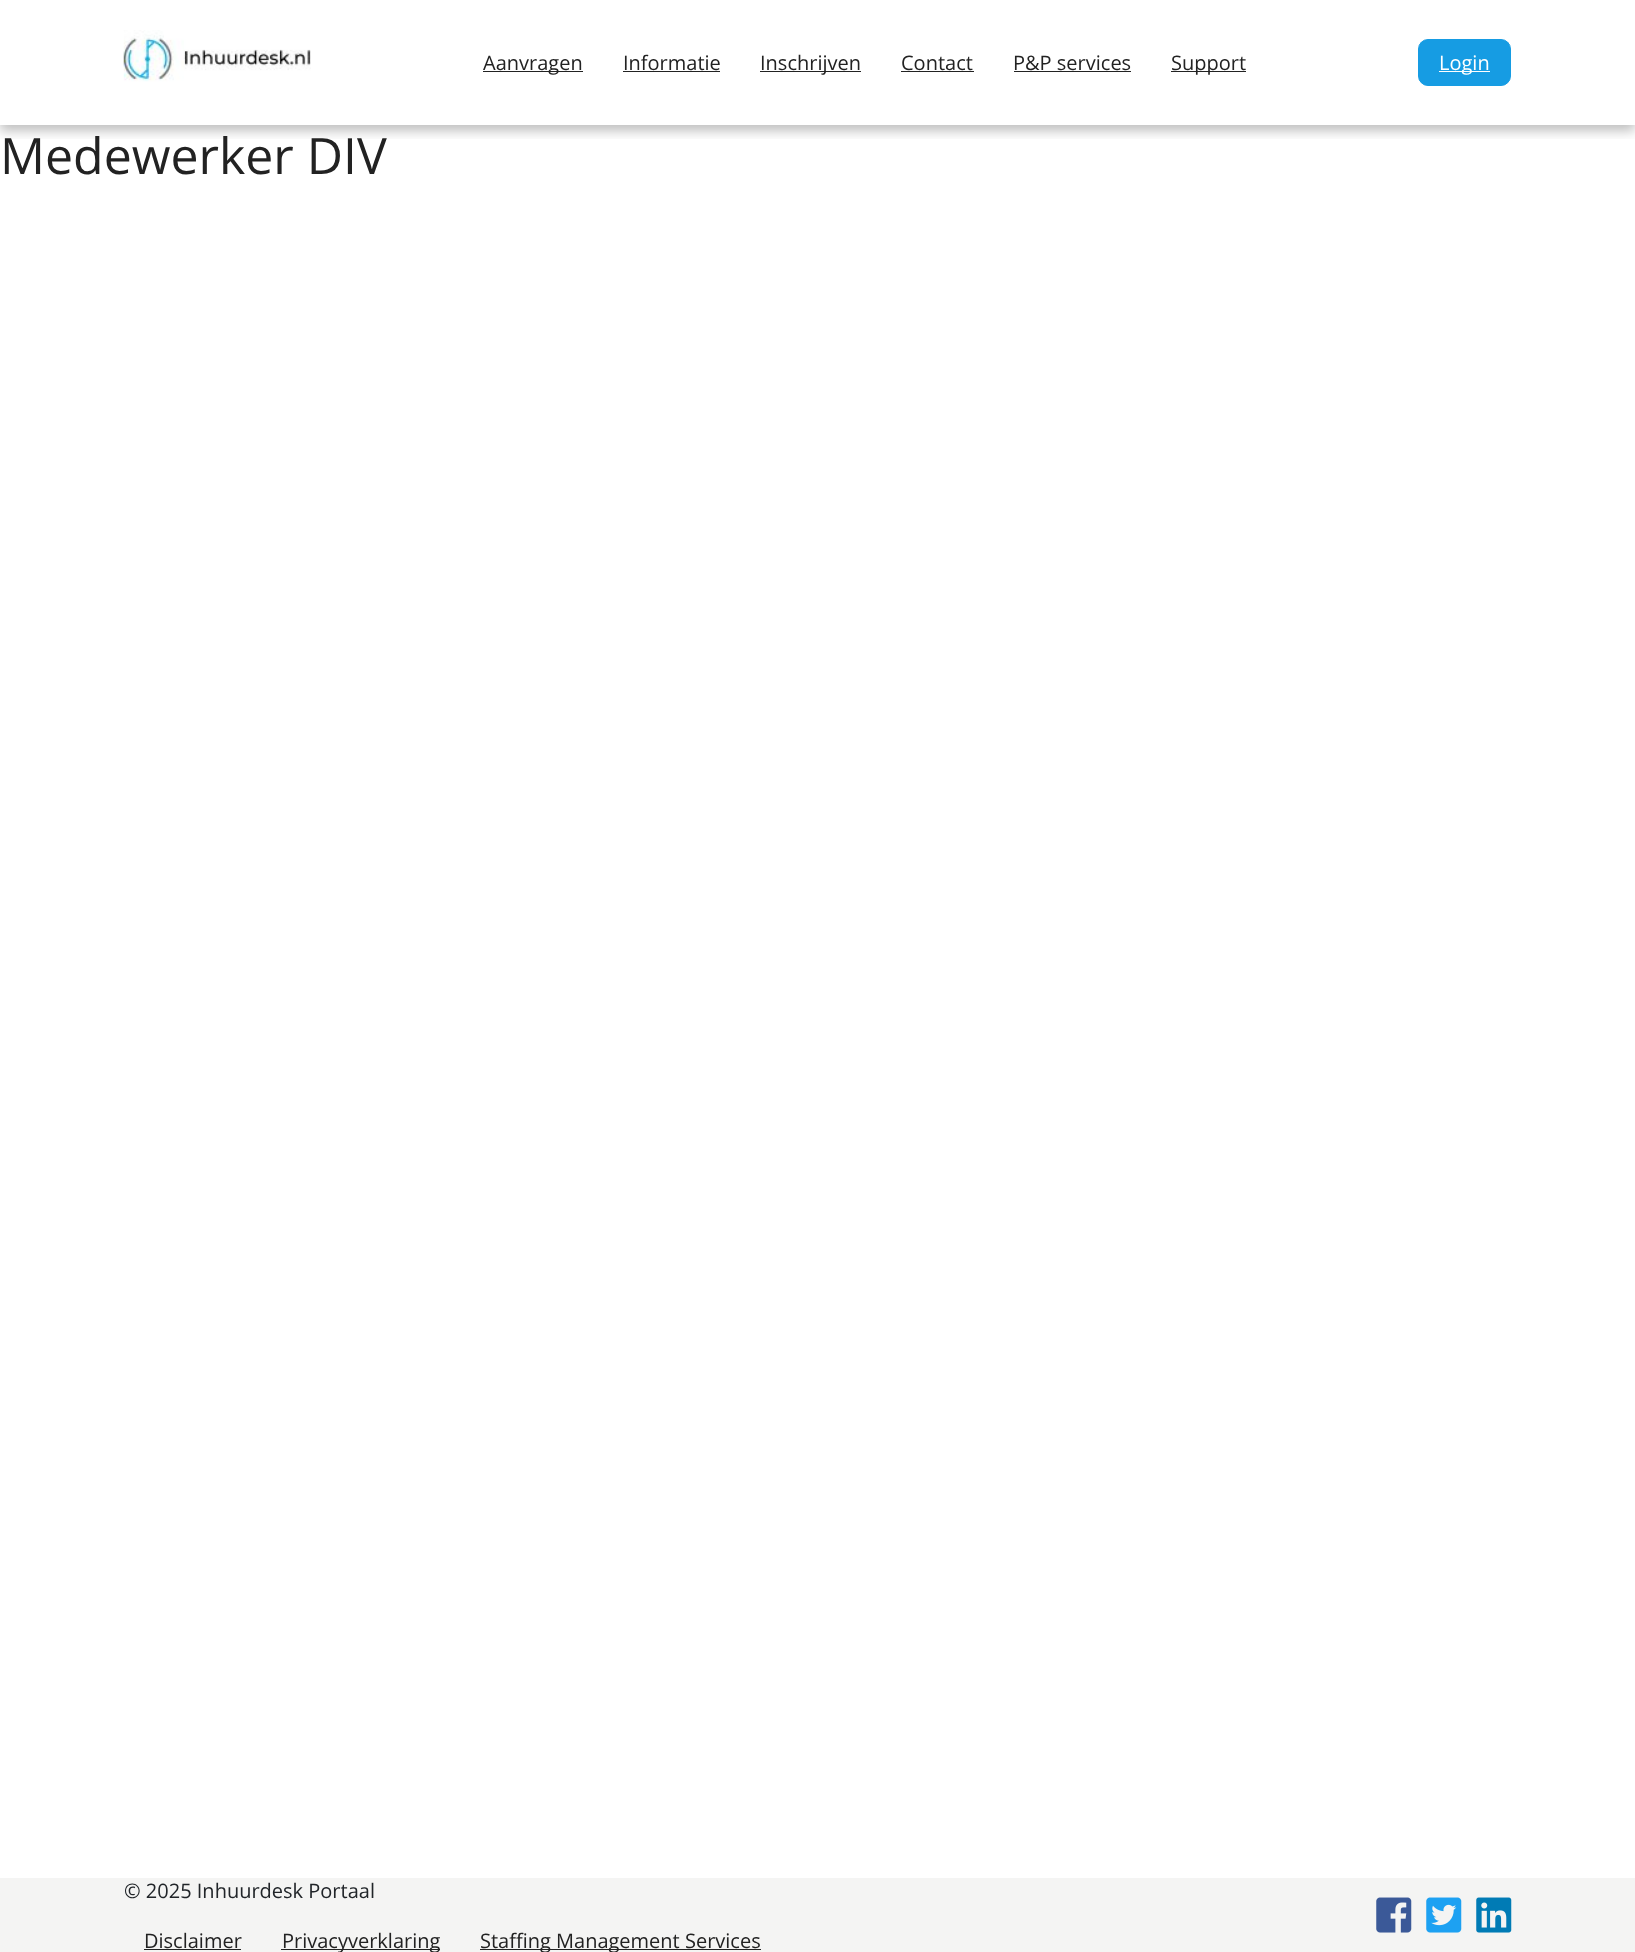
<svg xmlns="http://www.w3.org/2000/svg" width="1635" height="1952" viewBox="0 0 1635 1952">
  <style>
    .t1 { font: 20px Open Sans; fill: #222; }
    .t2 { font: 20px Open Sans; fill: #fff; }
    .t3 { font: 50px Open Sans; fill: #222; }
    .t4 { font: 20px Open Sans; fill: #212529; }
  </style>
  <defs>
    <clipPath id="clip1"><rect x="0" y="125" width="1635" height="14"/></clipPath>
  </defs>
  <rect width="100%" height="100%" fill="#fff"/>
  <g clip-path="url(#clip1)">
    <rect x="0" y="6" width="1635" height="125" fill="#00000040" filter="blur(6px)"/>
  </g>
  <image x="123" y="30" width="188" height="52" href="images/1.png"/>
  <rect x="483" y="71" width="100" height="1" fill="#222"/>
  <text x="483" y="70" class="t1">Aanvragen</text>
  <text x="623" y="70" class="t1">Informatie</text>
  <rect x="623" y="71" width="97" height="1" fill="#222"/>
  <rect x="760" y="71" width="101" height="1" fill="#222"/>
  <text x="760" y="70" class="t1">Inschrijven</text>
  <text x="901" y="70" class="t1">Contact</text>
  <rect x="901" y="71" width="73" height="1" fill="#222"/>
  <text x="1013" y="70" class="t1">P&amp;P services</text>
  <rect x="1014" y="71" width="117" height="1" fill="#222"/>
  <rect x="1171" y="71" width="75" height="1" fill="#222"/>
  <text x="1171" y="70" class="t1">Support</text>
  <rect x="1418.5" y="39.5" width="92" height="46" rx="9.5" fill="#169ce3" stroke="#169ce3"/>
  <rect x="1439" y="71" width="51" height="1" fill="#fff"/>
  <text x="1439" y="70" class="t2">Login</text>
  <text x="0" y="174" class="t3">Medewerker DIV</text>
  <rect x="0" y="1878" width="1635" height="74" fill="#f4f4f3"/>
  <text x="124" y="1898" class="t4">© 2025 Inhuurdesk Portaal</text>
  <text x="144" y="1948" class="t1">Disclaimer</text>
  <rect x="144" y="1949" width="97" height="1" fill="#222"/>
  <rect x="281" y="1949" width="159" height="1" fill="#222"/>
  <text x="282" y="1948" class="t1">Privacyverklaring</text>
  <rect x="480" y="1949" width="281" height="1" fill="#222"/>
  <text x="480" y="1948" class="t1">Staffing Management Services</text>
  <image x="1376" y="1897" width="36" height="36" href="images/2.png"/>
  <image x="1426" y="1897" width="36" height="36" href="images/3.png"/>
  <image x="1476" y="1897" width="36" height="36" href="images/4.png"/>
</svg>
